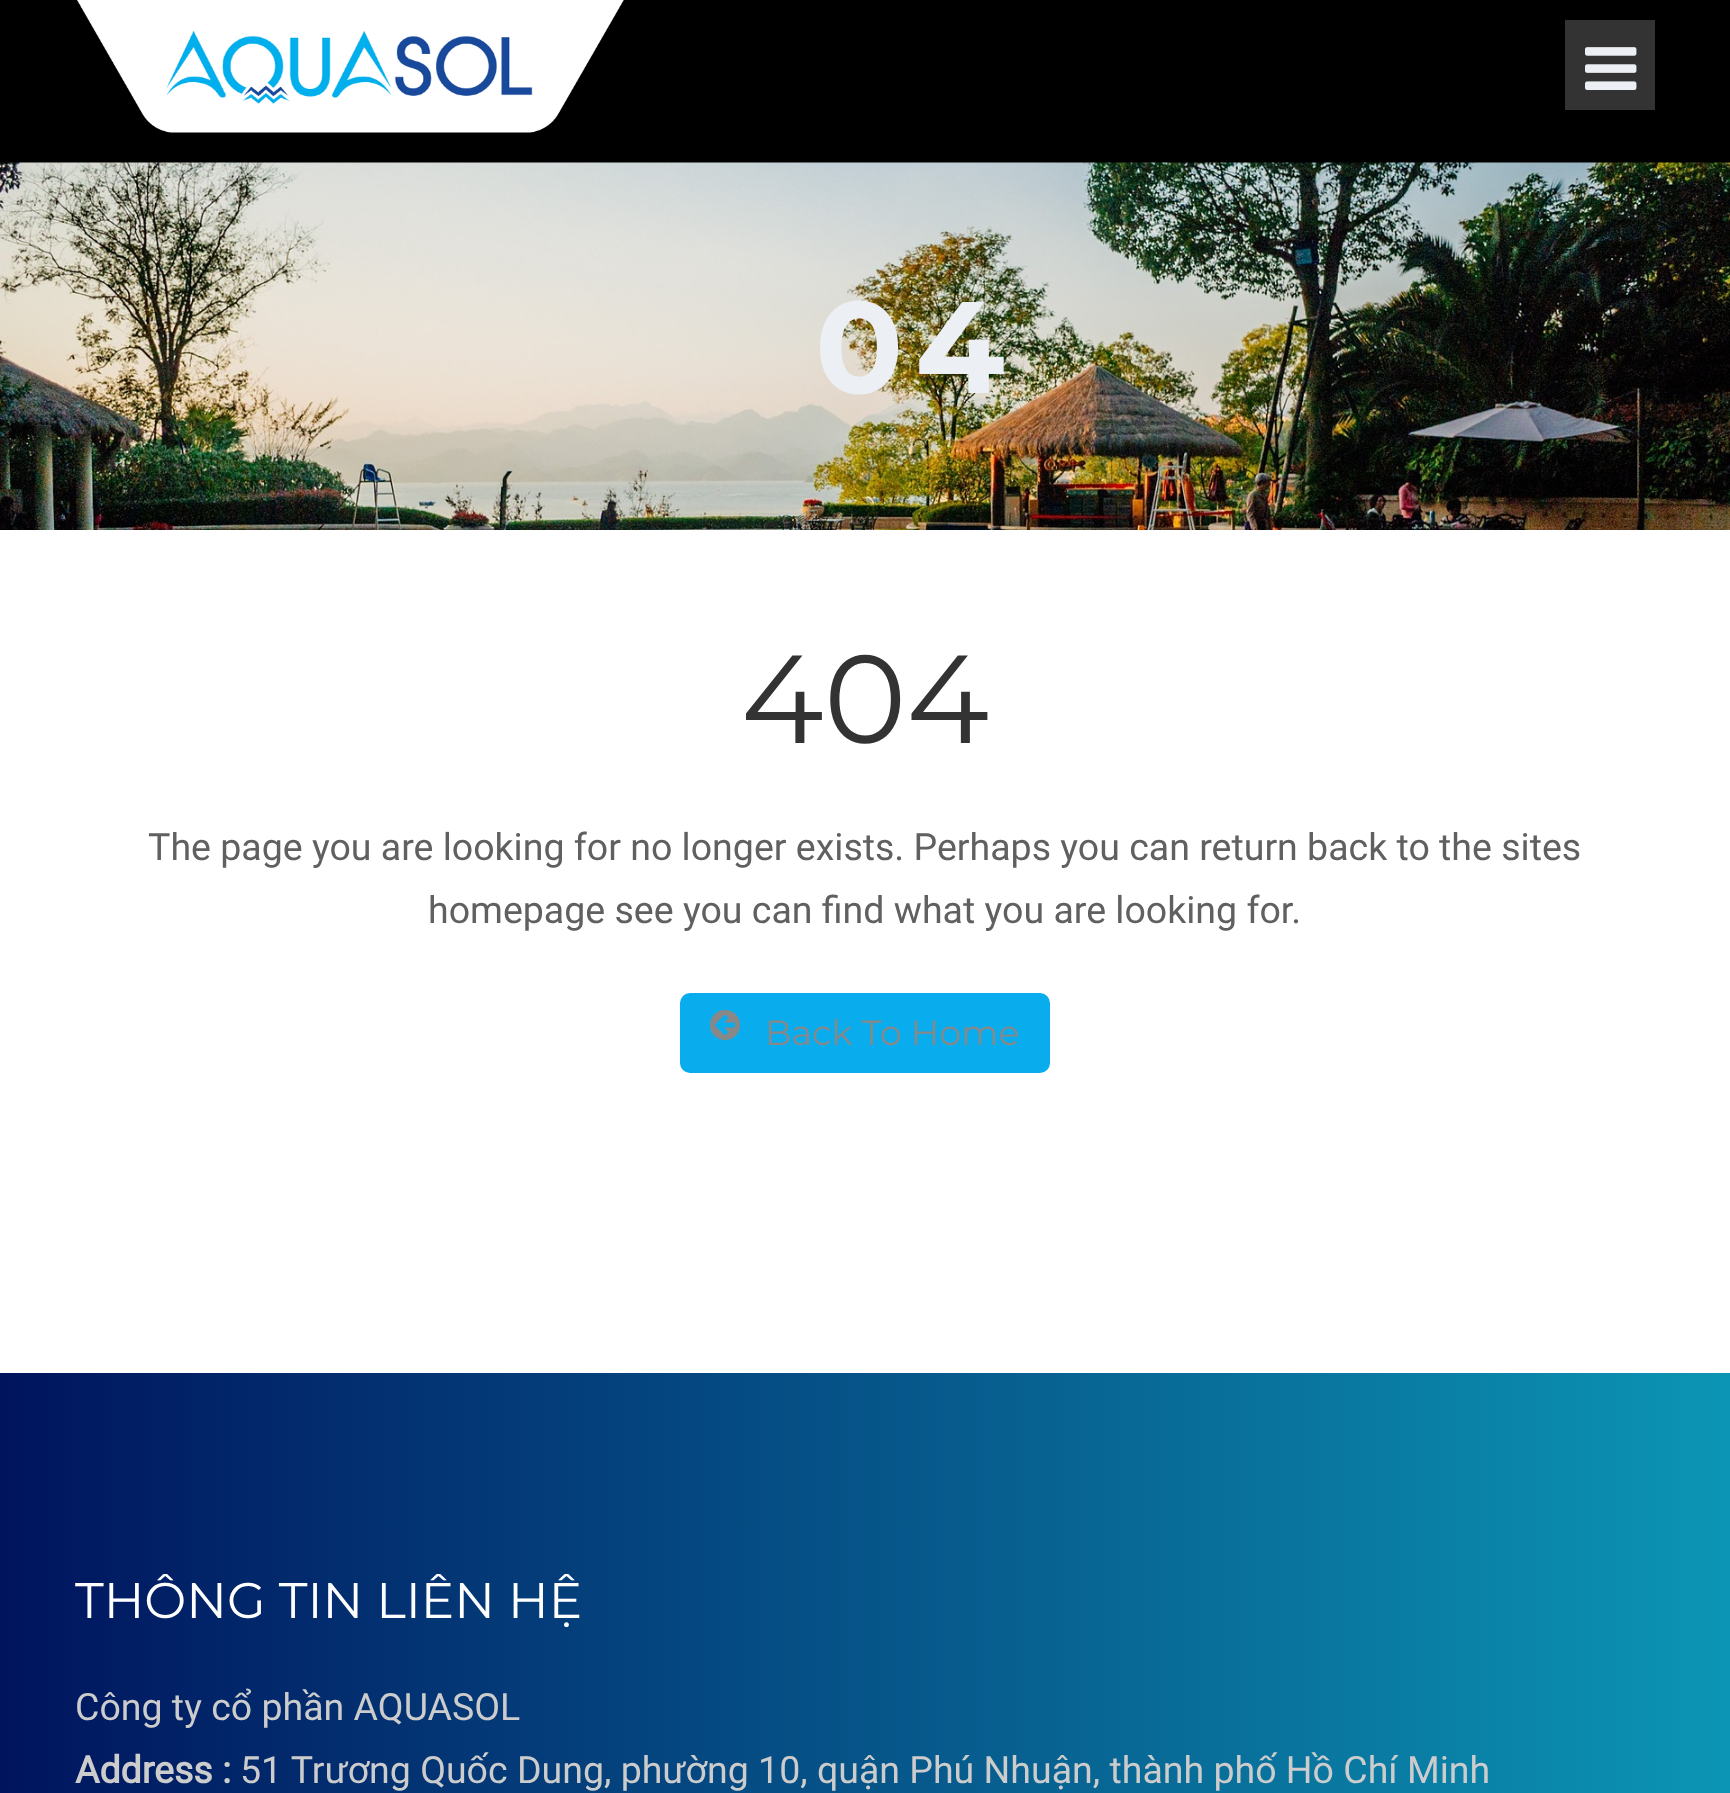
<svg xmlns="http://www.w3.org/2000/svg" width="1730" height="1793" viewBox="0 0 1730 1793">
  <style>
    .t1 { font: bold 130px Montserrat; letter-spacing: 12px; fill: #eceff3; }
    .t2 { font: 125px Montserrat; fill: #333; }
    .t3 { font: 37.5px Roboto; fill: #606060; }
    .t4 { font: 35px Montserrat; fill: #888; }
    .t5 { font: 50px Montserrat; fill: #fff; }
    .t6 { font: 37.5px Roboto; fill: #ccc; }
    .t7 { font: bold 37.5px Roboto; fill: #ccc; }
  </style>
  <defs>
    <linearGradient id="g1" gradientUnits="userSpaceOnUse" x1="0" y1="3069" x2="1730" y2="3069"><stop offset="0" stop-color="#00145e"/><stop offset="1" stop-color="#0c95b4"/></linearGradient>
  </defs>
  <rect width="100%" height="100%" fill="#fff"/>
  <rect x="0" y="0" width="1730" height="163" fill="#000"/>
  <image x="77" y="0" width="547" height="133" href="images/1.png"/>
  <rect x="1565" y="20" width="90" height="90" fill="#333"/>
  <image x="1585" y="47" width="52" height="43" href="images/2.png"/>
  <image x="0" y="162" width="1730" height="368" href="images/3.png"/>
  <text x="815" y="393" class="t1">04</text>
  <text x="741" y="743" class="t2">404</text>
  <text x="148" y="860" class="t3">The page you are looking for no longer exists. Perhaps you can return back to the sites</text>
  <text x="428" y="923" class="t3">homepage see you can find what you are looking for.</text>
  <rect x="680" y="993" width="370" height="80" rx="10" fill="#09adee"/>
  <image x="710" y="1010" width="30" height="30" href="images/4.png"/>
  <text x="765" y="1045" class="t4">Back To Home</text>
  <rect x="0" y="1373" width="1730" height="420" fill="url(#g1)"/>
  <text x="75" y="1618" class="t5">THÔNG TIN LIÊN HỆ</text>
  <text x="75" y="1720" class="t6">Công ty cổ phần AQUASOL</text>
  <text x="75" y="1783" class="t7">Address :</text>
  <text x="240" y="1783" class="t6">51 Trương Quốc Dung, phường 10, quận Phú Nhuận, thành phố Hồ Chí Minh</text>
</svg>
